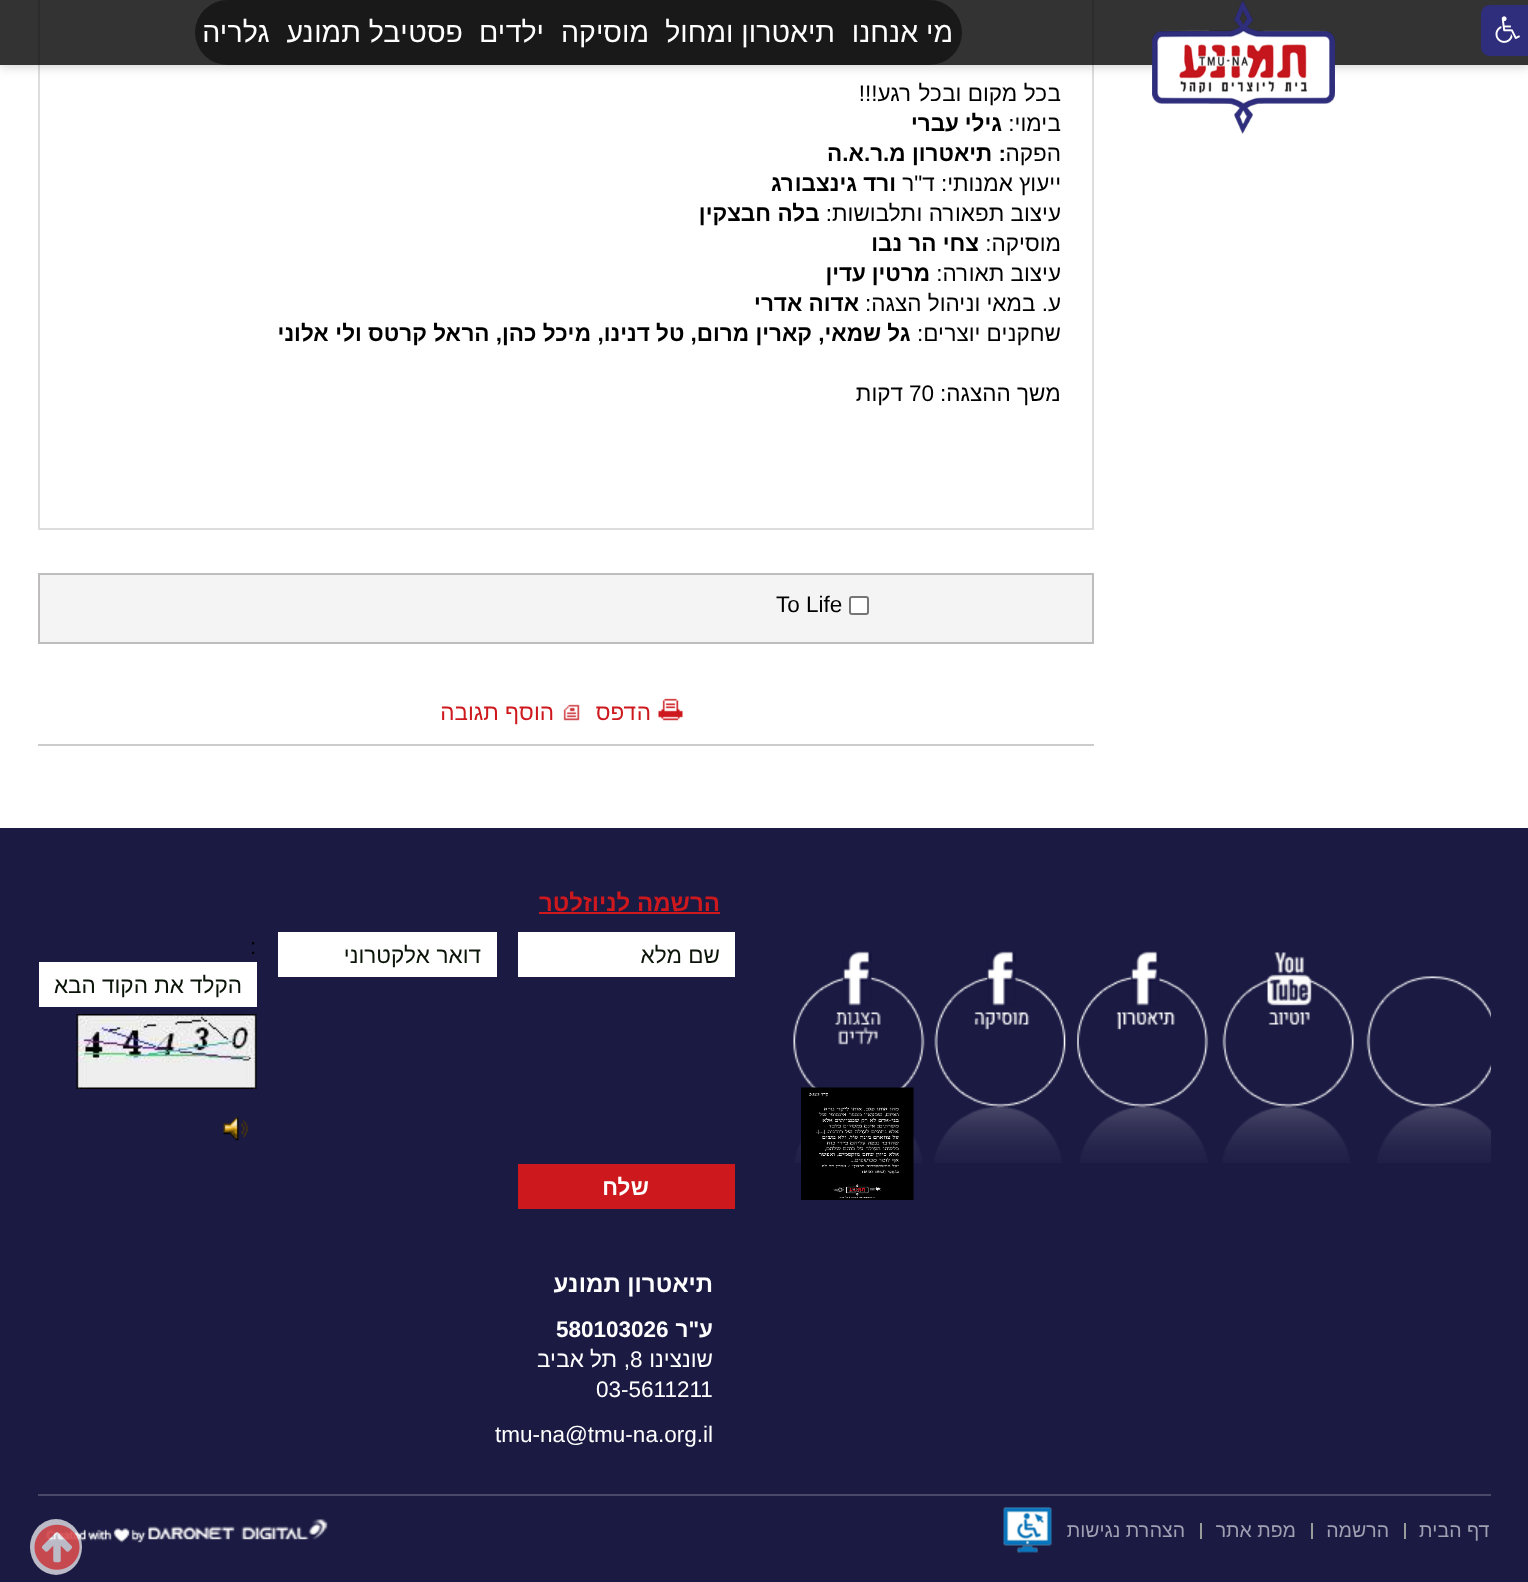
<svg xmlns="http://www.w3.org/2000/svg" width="1528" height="1582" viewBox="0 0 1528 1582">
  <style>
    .t1 { font: 28.5px Arimo; direction: rtl; fill: #fff; }
    .t2 { font: 22.5px Arimo; direction: rtl; fill: #000; }
    .t3 { font: bold 22.5px Arimo; direction: rtl; fill: #000; }
    .t4 { font: 22.5px Arimo; fill: #000; }
    .t5 { font: 22.5px Arimo; direction: rtl; fill: #cd181d; }
    .t6 { font: bold 24px Arimo; direction: rtl; fill: #cd181d; }
    .t7 { font: 22.5px Arimo; direction: rtl; fill: #0b1408; }
    .t8 { font: bold 22.5px Arimo; direction: rtl; fill: #fff; }
    .t9 { font: bold 24px Arimo; direction: rtl; fill: #fff; }
    .t10 { font: bold 22.5px Arimo; fill: #fff; }
    .t11 { font: 22.5px Arimo; direction: rtl; fill: #fff; }
    .t12 { font: 22.5px Arimo; fill: #fff; }
    .t13 { font: 19.5px Arimo; direction: rtl; fill: #9fa0b1; }
  </style>
  <defs>
    <clipPath id="clip1"><path d="M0 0H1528V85H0ZM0 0H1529V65H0Z" clip-rule="evenodd"/></clipPath>
  </defs>
  <rect width="100%" height="100%" fill="#fff"/>
  <rect x="39" y="-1" width="1054" height="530" fill="none" stroke="#ddd" stroke-width="2"/>
  <g clip-path="url(#clip1)">
    <rect x="0" y="2" width="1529" height="64" fill="#00000033" filter="blur(6px)"/>
  </g>
  <rect x="0" y="0" width="1528" height="65" fill="#000000cc"/>
  <path d="M1490 5H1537V56H1490C1485 56 1481 52 1481 47V14C1481 9 1485 5 1490 5Z" fill="#2f2e7d"/>
  <image x="1495" y="16" width="25" height="27" href="images/1.png"/>
  <image x="1152" y="0" width="183" height="134" href="images/2.png"/>
  <rect x="195" y="0" width="767" height="65" rx="32.5" fill="#00000080"/>
  <text x="953" y="42" class="t1">מי אנחנו</text>
  <text x="835" y="42" class="t1">תיאטרון ומחול</text>
  <text x="649" y="42" class="t1">מוסיקה</text>
  <text x="544" y="42" class="t1">ילדים</text>
  <text x="463" y="42" class="t1">פסטיבל תמונע</text>
  <text x="270" y="42" class="t1">גלריה</text>
  <text x="1061" y="101" class="t2">בכל מקום ובכל רגע!!!</text>
  <text x="1061" y="131" class="t2">בימוי:</text>
  <text x="1002" y="131" class="t3">גילי</text>
  <text x="959" y="131" class="t3">עברי</text>
  <text x="1061" y="161" class="t2">הפקה</text>
  <text x="1006" y="161" class="t3">: תיאטרון מ.ר.א.ה</text>
  <text x="1061" y="191" class="t2">ייעוץ אמנותי: ד"ר</text>
  <text x="896" y="191" class="t3">ורד</text>
  <text x="857" y="191" class="t3">גינצבורג</text>
  <text x="1061" y="221" class="t2">עיצוב תפאורה ותלבושות:</text>
  <text x="820" y="221" class="t3">בלה</text>
  <text x="771" y="221" class="t3">חבצקין</text>
  <text x="1061" y="251" class="t2">מוסיקה:</text>
  <text x="979" y="251" class="t3">צחי הר נבו</text>
  <text x="1061" y="281" class="t2">עיצוב תאורה:</text>
  <text x="930" y="281" class="t3">מרטין</text>
  <text x="866" y="281" class="t3">עדין</text>
  <text x="1061" y="311" class="t2">ע. במאי וניהול הצגה:</text>
  <text x="859" y="311" class="t3">אדוה אדרי</text>
  <text x="1061" y="341" class="t2">שחקנים יוצרים:</text>
  <text x="911" y="341" class="t3">גל שמאי, קארין מרום, טל דנינו, מיכל כהן, הראל קרטס ולי אלוני</text>
  <text x="1061" y="401" class="t2">משך ההצגה:</text>
  <text x="909" y="401" class="t4">70</text>
  <text x="903" y="401" class="t2">דקות</text>
  <rect x="39" y="574" width="1054" height="69" fill="#f5f4f4" stroke="#bfbcbe" stroke-width="2"/>
  <rect x="850" y="597" width="18" height="17" rx="2" fill="#fff" stroke="#767676" stroke-width="2"/>
  <text x="776" y="612" class="t4">To Life</text>
  <rect x="38" y="744" width="1056" height="2" fill="#ccc"/>
  <image x="658" y="698" width="25" height="23" href="images/3.png"/>
  <text x="651" y="720" class="t5">הדפס</text>
  <image x="563" y="704" width="17" height="17" href="images/4.png"/>
  <text x="554" y="720" class="t5">הוסף תגובה</text>
  <rect x="0" y="828" width="1528" height="754" fill="#1b1a43"/>
  <image x="793" y="976" width="698" height="187" href="images/5.png"/>
  <image x="1267" y="952" width="45" height="73" href="images/6.png"/>
  <image x="1116" y="951" width="59" height="79" href="images/7.png"/>
  <image x="974" y="951" width="56" height="79" href="images/8.png"/>
  <image x="835" y="951" width="46" height="94" href="images/9.png"/>
  <image x="801" y="1087" width="113" height="113" href="images/10.png"/>
  <text x="720" y="911" class="t6">הרשמה לניוזלטר</text>
  <rect x="539" y="912" width="181" height="2" fill="#cd181d"/>
  <rect x="518" y="932" width="217" height="45" fill="#fff"/>
  <text x="720" y="963" class="t7">שם מלא</text>
  <rect x="278" y="932" width="219" height="45" fill="#fff"/>
  <text x="481" y="963" class="t7">דואר אלקטרוני</text>
  <text x="250" y="954" class="t4">:</text>
  <rect x="39" y="962" width="218" height="45" fill="#fff"/>
  <text x="242" y="993" class="t7">הקלד את הקוד הבא</text>
  <image x="76" y="1014" width="181" height="75" href="images/11.png"/>
  <image x="223" y="1117" width="25" height="24" href="images/12.png"/>
  <rect x="518" y="1164" width="217" height="45" fill="#cd181d"/>
  <text x="649" y="1195" class="t8">שלח</text>
  <text x="713" y="1292" class="t9">תיאטרון תמונע</text>
  <text x="713" y="1337" class="t8">ע"ר</text>
  <text x="556" y="1337" class="t10">580103026</text>
  <text x="713" y="1367" class="t11">שונצינו</text>
  <text x="630" y="1367" class="t12">8</text>
  <text x="630" y="1367" class="t11">, תל אביב</text>
  <text x="596" y="1397" class="t12">03-5611211</text>
  <text x="495" y="1442" class="t12">tmu-na@tmu-na.org.il</text>
  <rect x="38" y="1494" width="1453" height="2" fill="#494869"/>
  <text x="1490" y="1537" class="t13">דף הבית</text>
  <rect x="1404" y="1523" width="2" height="16" fill="#999d99"/>
  <text x="1389" y="1537" class="t13">הרשמה</text>
  <rect x="1311" y="1523" width="2" height="16" fill="#999d99"/>
  <text x="1296" y="1537" class="t13">מפת אתר</text>
  <rect x="1200" y="1523" width="2" height="16" fill="#999d99"/>
  <text x="1185" y="1537" class="t13">הצהרת נגישות</text>
  <image x="1003" y="1507" width="49" height="46" href="images/13.png"/>
  <image x="46" y="1519" width="282" height="24" href="images/14.png"/>
  <ellipse cx="56" cy="1547" rx="26" ry="28" fill="#ffffffb3"/>
  <image x="34" y="1524" width="46" height="46" href="images/15.png"/>
</svg>
